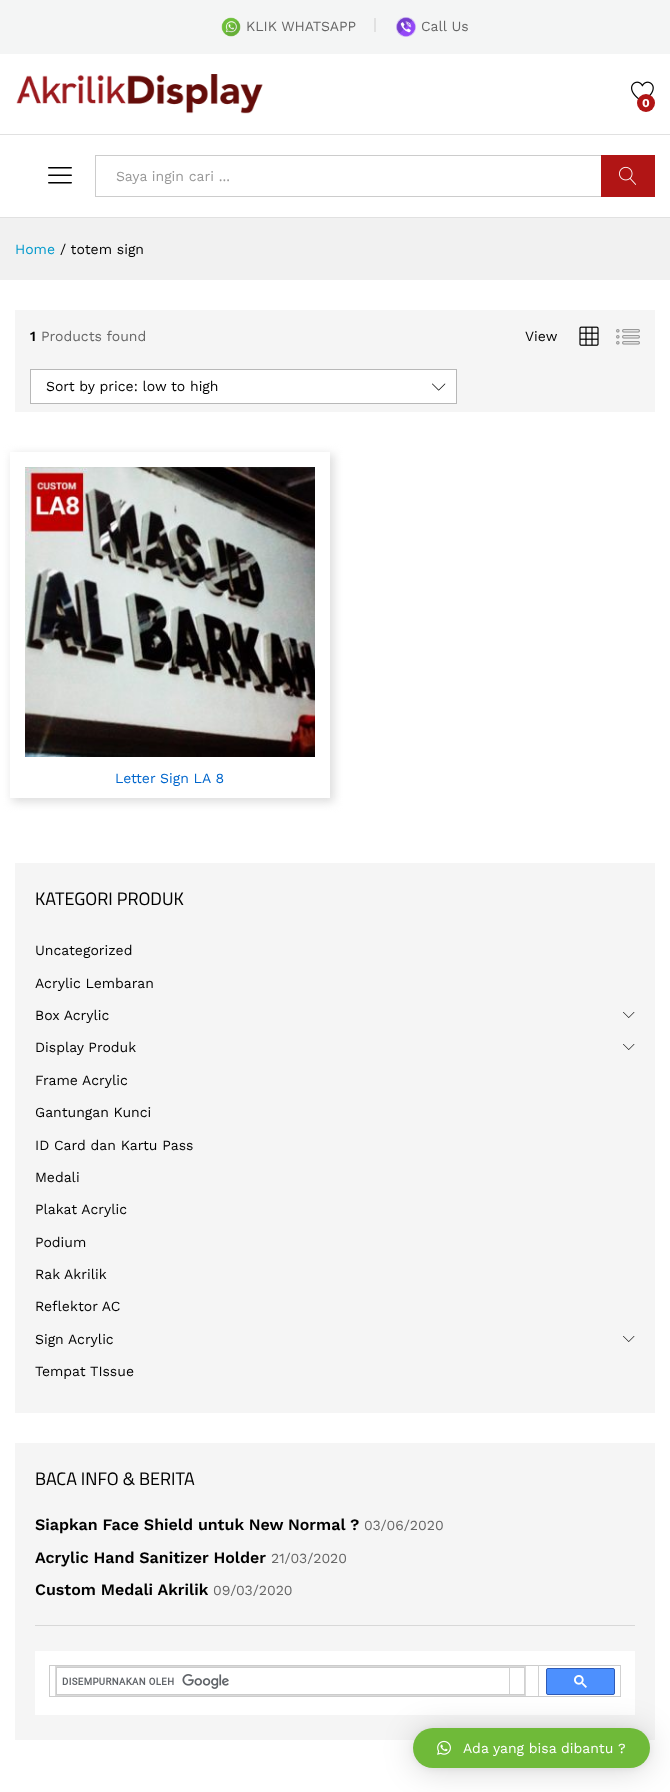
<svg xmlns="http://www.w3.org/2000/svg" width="670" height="1792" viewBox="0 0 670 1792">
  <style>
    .t1 { font: 14px Work Sans; fill: #666; }
    .t2 { font: bold 12px Work Sans; fill: #fff; }
    .t3 { font: 14px Work Sans; fill: #999; }
    .t4 { font: 14px Work Sans; fill: #09c; }
    .t5 { font: 14px Work Sans; fill: #000; }
    .t6 { font: 600 14px Work Sans; fill: #000; }
    .t7 { font: 14px Work Sans; fill: #06c; }
    .t8 { font: 18px Cairo; fill: #000; }
    .t9 { font: 600 16px Work Sans; fill: #000; }
    .t10 { font: 14px Work Sans; fill: #fff; }
  </style>
  <defs>
    <clipPath id="clip1"><path d="M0 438H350V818H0ZM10 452H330V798H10Z" clip-rule="evenodd"/></clipPath>
  </defs>
  <rect width="100%" height="100%" fill="#fff"/>
  <rect x="0" y="0" width="670" height="54" fill="#f4f5f5"/>
  <image x="221" y="17" width="20" height="20" href="images/1.png"/>
  <text x="246" y="31" class="t1">KLIK WHATSAPP</text>
  <rect x="374" y="18" width="2" height="14" fill="#e1e1e1"/>
  <image x="396" y="17" width="20" height="20" href="images/2.png"/>
  <text x="421" y="31" class="t1">Call Us</text>
  <image x="16" y="74" width="247" height="40" href="images/3.png"/>
  <image x="631" y="81" width="23" height="18" href="images/4.png"/>
  <circle cx="646" cy="103" r="9" fill="#b11515"/>
  <text x="642" y="107" class="t2">0</text>
  <rect x="0" y="134" width="670" height="1" fill="#e1e1e1"/>
  <rect x="0" y="217" width="670" height="1" fill="#e1e1e1"/>
  <image x="48" y="167" width="24" height="17" href="images/5.png"/>
  <rect x="95" y="155" width="1" height="42" fill="#ccc"/>
  <rect x="96" y="155" width="505" height="1" fill="#ccc"/>
  <rect x="96" y="196" width="505" height="1" fill="#ccc"/>
  <text x="116" y="181" class="t3">Saya ingin cari ...</text>
  <rect x="601" y="155" width="54" height="42" fill="#b11515"/>
  <image x="619" y="166" width="18" height="19" href="images/6.png"/>
  <rect x="0" y="218" width="670" height="62" fill="#f1f1f1"/>
  <text x="15" y="254" class="t4">Home</text>
  <text x="60" y="254" class="t5">/ totem sign</text>
  <rect x="15" y="310" width="640" height="102" fill="#f5f5f5"/>
  <text x="30" y="341" class="t6">1</text>
  <text x="41" y="341" class="t1">Products found</text>
  <text x="525" y="341" class="t5">View</text>
  <image x="579" y="326" width="20" height="20" href="images/7.png"/>
  <image x="616" y="329" width="24" height="16" href="images/8.png"/>
  <rect x="30.5" y="369.5" width="426" height="34" fill="#fff" stroke="#b8b8b8"/>
  <text x="46" y="391" class="t5">Sort by price: low to high</text>
  <image x="432" y="383" width="14" height="8" href="images/9.png"/>
  <g clip-path="url(#clip1)">
    <rect x="12" y="454" width="322" height="348" fill="#ddd" filter="blur(5px)"/>
  </g>
  <image x="25" y="467" width="290" height="290" href="images/10.png"/>
  <text x="115" y="783" class="t7">Letter Sign LA 8</text>
  <rect x="15" y="863" width="640" height="550" fill="#f5f5f5"/>
  <text x="35" y="905" class="t8">KATEGORI PRODUK</text>
  <text x="35" y="955" class="t5">Uncategorized</text>
  <text x="35" y="988" class="t5">Acrylic Lembaran</text>
  <text x="35" y="1020" class="t5">Box Acrylic</text>
  <image x="623" y="1012" width="12" height="6" href="images/11.png"/>
  <text x="35" y="1052" class="t5">Display Produk</text>
  <image x="623" y="1044" width="12" height="6" href="images/11.png"/>
  <text x="35" y="1085" class="t5">Frame Acrylic</text>
  <text x="35" y="1117" class="t5">Gantungan Kunci</text>
  <text x="35" y="1150" class="t5">ID Card dan Kartu Pass</text>
  <text x="35" y="1182" class="t5">Medali</text>
  <text x="35" y="1214" class="t5">Plakat Acrylic</text>
  <text x="35" y="1247" class="t5">Podium</text>
  <text x="35" y="1279" class="t5">Rak Akrilik</text>
  <text x="35" y="1311" class="t5">Reflektor AC</text>
  <text x="35" y="1344" class="t5">Sign Acrylic</text>
  <image x="623" y="1336" width="12" height="6" href="images/11.png"/>
  <text x="35" y="1376" class="t5">Tempat TIssue</text>
  <rect x="15" y="1443" width="640" height="297" fill="#f5f5f5"/>
  <text x="35" y="1485" class="t8">BACA INFO &amp; BERITA</text>
  <text x="35" y="1530" class="t9">Siapkan Face Shield untuk New Normal ?</text>
  <text x="364" y="1530" class="t1">03/06/2020</text>
  <text x="35" y="1563" class="t9">Acrylic Hand Sanitizer Holder</text>
  <text x="271" y="1563" class="t1">21/03/2020</text>
  <text x="35" y="1595" class="t9">Custom Medali Akrilik</text>
  <text x="213" y="1595" class="t1">09/03/2020</text>
  <rect x="35" y="1625" width="600" height="1" fill="#d8d8d8"/>
  <rect x="35" y="1651" width="600" height="64" fill="#fff"/>
  <rect x="49" y="1665" width="572" height="1" fill="#ccc"/>
  <rect x="49" y="1665" width="1" height="32" fill="#ccc"/>
  <rect x="620" y="1665" width="1" height="32" fill="#d1d1d1"/>
  <rect x="538" y="1696" width="83" height="1" fill="#ccc"/>
  <rect x="538" y="1665" width="1" height="32" fill="#d1d1d1"/>
  <rect x="49" y="1696" width="490" height="1" fill="#ccc"/>
  <rect x="55.5" y="1666.5" width="470" height="29" fill="none" stroke="#d9d9d9"/>
  <rect x="56" y="1667" width="469" height="1" fill="#ccc"/>
  <rect x="56" y="1667" width="1" height="28" fill="#ccc"/>
  <rect x="524" y="1667" width="1" height="28" fill="#d1d1d1"/>
  <rect x="509" y="1694" width="16" height="1" fill="#ccc"/>
  <rect x="509" y="1667" width="1" height="28" fill="#d1d1d1"/>
  <rect x="56" y="1694" width="454" height="1" fill="#ccc"/>
  <image x="62" y="1674" width="167" height="15" href="images/12.png"/>
  <rect x="546.5" y="1668.5" width="68" height="26" rx="1.5" fill="#4d90fe" stroke="#2f5bb7"/>
  <image x="574" y="1675" width="13" height="13" href="images/13.png"/>
  <rect x="413" y="1730" width="237" height="40" rx="20" fill="#00000029" filter="blur(16px)"/>
  <rect x="413" y="1729" width="237" height="40" rx="20" fill="#0000000f" filter="blur(3px)"/>
  <rect x="413" y="1728" width="237" height="40" rx="20" fill="#6fba39"/>
  <image x="437" y="1740" width="14" height="15" href="images/14.png"/>
  <text x="463" y="1753" class="t10">Ada yang bisa dibantu ?</text>
</svg>
